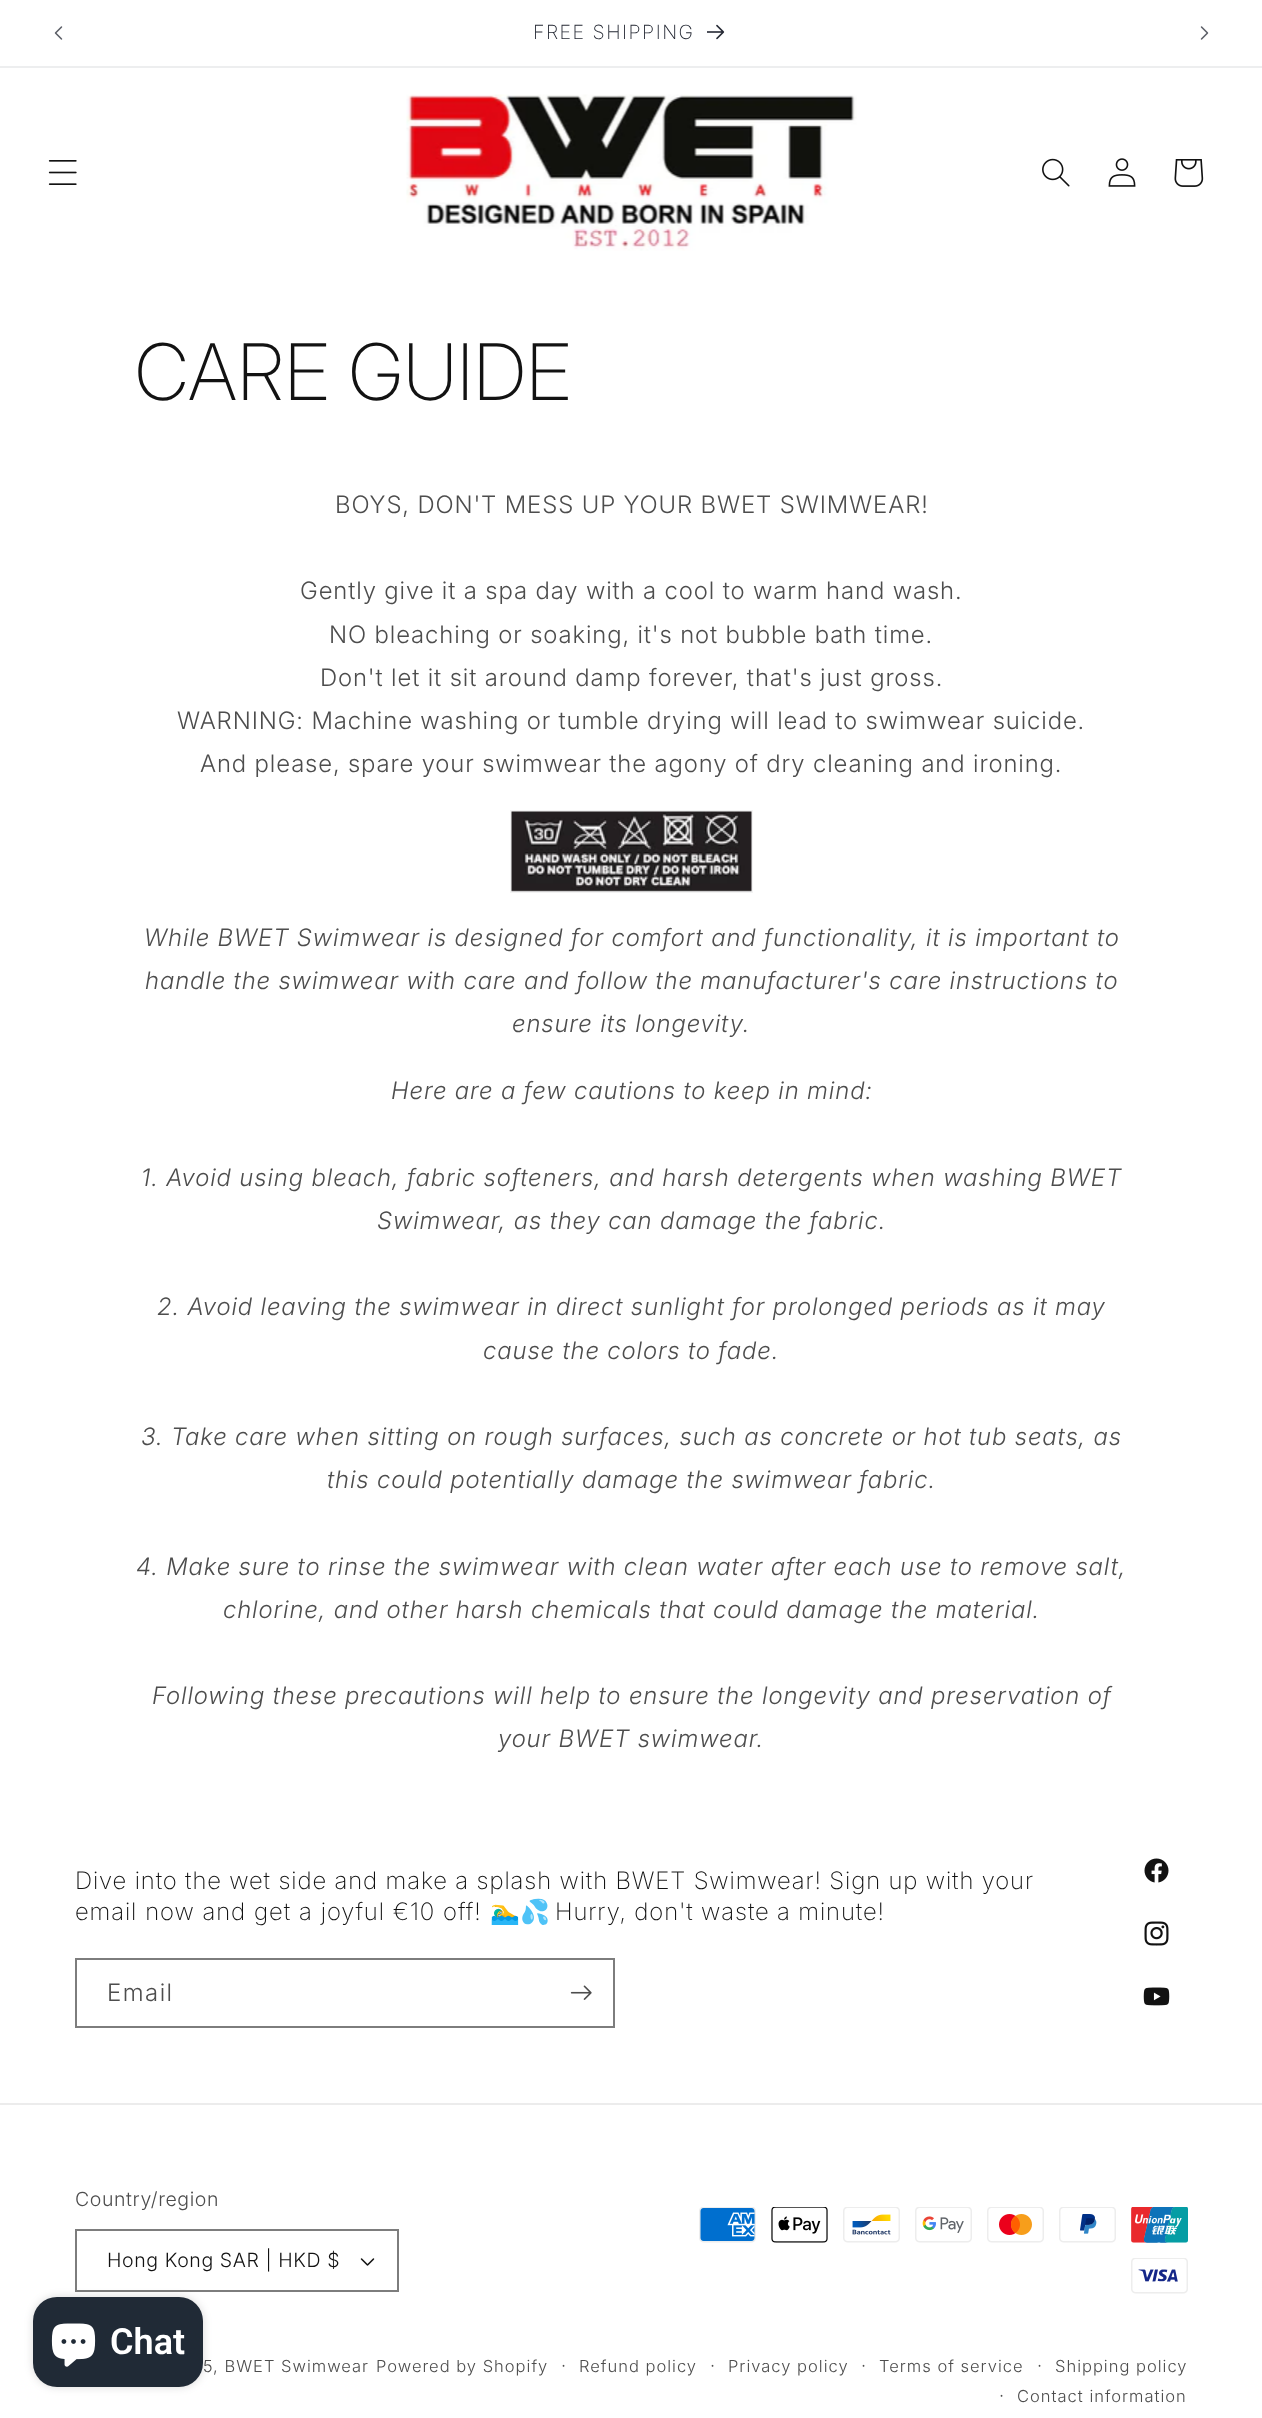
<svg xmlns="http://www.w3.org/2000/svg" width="1262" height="2418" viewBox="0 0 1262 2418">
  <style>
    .t1 { font: 200 19.5px 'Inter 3'; letter-spacing: 1.5px; fill: #242833; }
    .t2 { font: 200 78px Inter; letter-spacing: 0.9px; fill: #121212; }
    .t3 { font: 300 24px Inter; letter-spacing: 0.9px; fill: #4d4d4d; }
    .t4 { font: italic 300 24px Inter; letter-spacing: 0.9px; fill: #4d4d4d; }
    .t5 { font: 200 24px 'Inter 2'; letter-spacing: 0.9px; fill: #121212; }
    .t6 { font: 24px Noto Color Emoji; letter-spacing: 0.9px; fill: #121212; }
    .t7 { font: 300 24px Inter; letter-spacing: 1.5px; fill: #4d4d4d; }
    .t8 { font: 300 19.5px 'Inter 2'; letter-spacing: 0.6px; fill: #4d4d4d; }
    .t9 { font: 300 19.5px 'Inter 2'; letter-spacing: 0.6px; fill: #121212; }
    .t10 { font: 300 16.5px 'Inter 2'; letter-spacing: 1px; fill: #4d4d4d; }
    .t11 { font: 300 18px 'Inter 2'; letter-spacing: 1px; fill: #4d4d4d; }
    .t12 { font: 600 36px Roboto; fill: #fff; }
  </style>
  <rect width="100%" height="100%" fill="#fff"/>
  <rect x="0" y="66" width="1262" height="2" fill="#edeeef"/>
  <image x="54" y="26" width="9" height="14" href="images/1.png"/>
  <text x="533" y="39" class="t1">FREE SHIPPING</text>
  <image x="707" y="24" width="18" height="16" href="images/2.png"/>
  <image x="1200" y="26" width="9" height="14" href="images/3.png"/>
  <image x="48" y="160" width="29" height="25" href="images/4.png"/>
  <image x="406" y="94" width="451" height="157" href="images/5.png"/>
  <image x="1042" y="158" width="28" height="29" href="images/6.png"/>
  <image x="1108" y="158" width="28" height="29" href="images/7.png"/>
  <image x="1174" y="159" width="30" height="28" href="images/8.png"/>
  <text x="135" y="400" class="t2">CARE GUIDE</text>
  <text x="335" y="513" class="t3">BOYS, DON'T MESS UP YOUR BWET SWIMWEAR!</text>
  <text x="300" y="599" class="t3">Gently give it a spa day with a cool to warm hand wash.</text>
  <text x="329" y="643" class="t3">NO bleaching or soaking, it's not bubble bath time.</text>
  <text x="320" y="686" class="t3">Don't let it sit around damp forever, that's just gross.</text>
  <text x="177" y="729" class="t3">WARNING: Machine washing or tumble drying will lead to swimwear suicide.</text>
  <text x="200" y="772" class="t3">And please, spare your swimwear the agony of dry cleaning and ironing.</text>
  <rect x="511" y="811" width="241" height="81" fill="none" stroke="#f3f3f3" stroke-width="2"/>
  <image x="511" y="811" width="241" height="81" href="images/9.png"/>
  <text x="144" y="946" class="t4">While BWET Swimwear is designed for comfort and functionality, it is important to</text>
  <text x="145" y="989" class="t4">handle the swimwear with care and follow the manufacturer's care instructions to</text>
  <text x="512" y="1032" class="t4">ensure its longevity.</text>
  <text x="391" y="1099" class="t4">Here are a few cautions to keep in mind:</text>
  <text x="141" y="1186" class="t4">1. Avoid using bleach, fabric softeners, and harsh detergents when washing BWET</text>
  <text x="377" y="1229" class="t4">Swimwear, as they can damage the fabric.</text>
  <text x="157" y="1315" class="t4">2. Avoid leaving the swimwear in direct sunlight for prolonged periods as it may</text>
  <text x="483" y="1359" class="t4">cause the colors to fade.</text>
  <text x="141" y="1445" class="t4">3. Take care when sitting on rough surfaces, such as concrete or hot tub seats, as</text>
  <text x="327" y="1488" class="t4">this could potentially damage the swimwear fabric.</text>
  <text x="136" y="1575" class="t4">4. Make sure to rinse the swimwear with clean water after each use to remove salt,</text>
  <text x="223" y="1618" class="t4">chlorine, and other harsh chemicals that could damage the material.</text>
  <text x="152" y="1704" class="t4">Following these precautions will help to ensure the longevity and preservation of</text>
  <text x="498" y="1747" class="t4">your BWET swimwear.</text>
  <text x="75" y="1889" class="t5">Dive into the wet side and make a splash with BWET Swimwear! Sign up with your</text>
  <text x="75" y="1920" word-spacing="0.5" class="t5">email now and get a joyful €10 off!</text>
  <text x="490" y="1920" class="t6">🏊‍♂️💦</text>
  <text x="555" y="1920" class="t5">Hurry, don't waste a minute!</text>
  <rect x="76" y="1959" width="538" height="68" fill="none" stroke="#7d7d7d" stroke-width="2"/>
  <text x="107" y="2001" class="t7">Email</text>
  <image x="570" y="1985" width="22" height="15" href="images/10.png"/>
  <image x="1144" y="1858" width="25" height="25" href="images/11.png"/>
  <image x="1144" y="1921" width="25" height="25" href="images/12.png"/>
  <image x="1143" y="1987" width="27" height="19" href="images/13.png"/>
  <rect x="0" y="2103" width="1262" height="2" fill="#ececec"/>
  <text x="75" y="2206" class="t8">Country/region</text>
  <image x="360" y="2258" width="15" height="8" href="images/14.png"/>
  <rect x="76" y="2230" width="322" height="61" fill="none" stroke="#7d7d7d" stroke-width="2"/>
  <text x="107" y="2267" class="t9">Hong Kong SAR | HKD $</text>
  <image x="699" y="2207" width="57" height="36" href="images/15.png"/>
  <image x="771" y="2207" width="57" height="36" href="images/16.png"/>
  <image x="843" y="2207" width="57" height="36" href="images/17.png"/>
  <image x="915" y="2207" width="57" height="36" href="images/18.png"/>
  <image x="987" y="2207" width="57" height="36" href="images/19.png"/>
  <image x="1059" y="2207" width="57" height="36" href="images/20.png"/>
  <image x="1131" y="2207" width="57" height="36" href="images/21.png"/>
  <image x="1131" y="2258" width="57" height="36" href="images/22.png"/>
  <text x="203" y="2372" class="t10">5, BWET Swimwear</text>
  <text x="376" y="2372" class="t10">Powered by Shopify</text>
  <text x="561" y="2372" class="t11">·</text>
  <text x="579" y="2372" class="t10">Refund policy</text>
  <text x="710" y="2372" class="t11">·</text>
  <text x="728" y="2372" class="t10">Privacy policy</text>
  <text x="861" y="2372" class="t11">·</text>
  <text x="879" y="2372" class="t10">Terms of service</text>
  <text x="1037" y="2372" class="t11">·</text>
  <text x="1055" y="2372" class="t10">Shipping policy</text>
  <text x="999" y="2402" class="t11">·</text>
  <text x="1017" y="2402" class="t10">Contact information</text>
  <rect x="33" y="2297" width="170" height="90" rx="24" fill="#00000026" filter="blur(4px)"/>
  <rect x="33" y="2297" width="170" height="90" rx="24" fill="#202a36"/>
  <image x="51" y="2323" width="45" height="44" href="images/23.png"/>
  <text x="110" y="2354" class="t12">Chat</text>
</svg>
